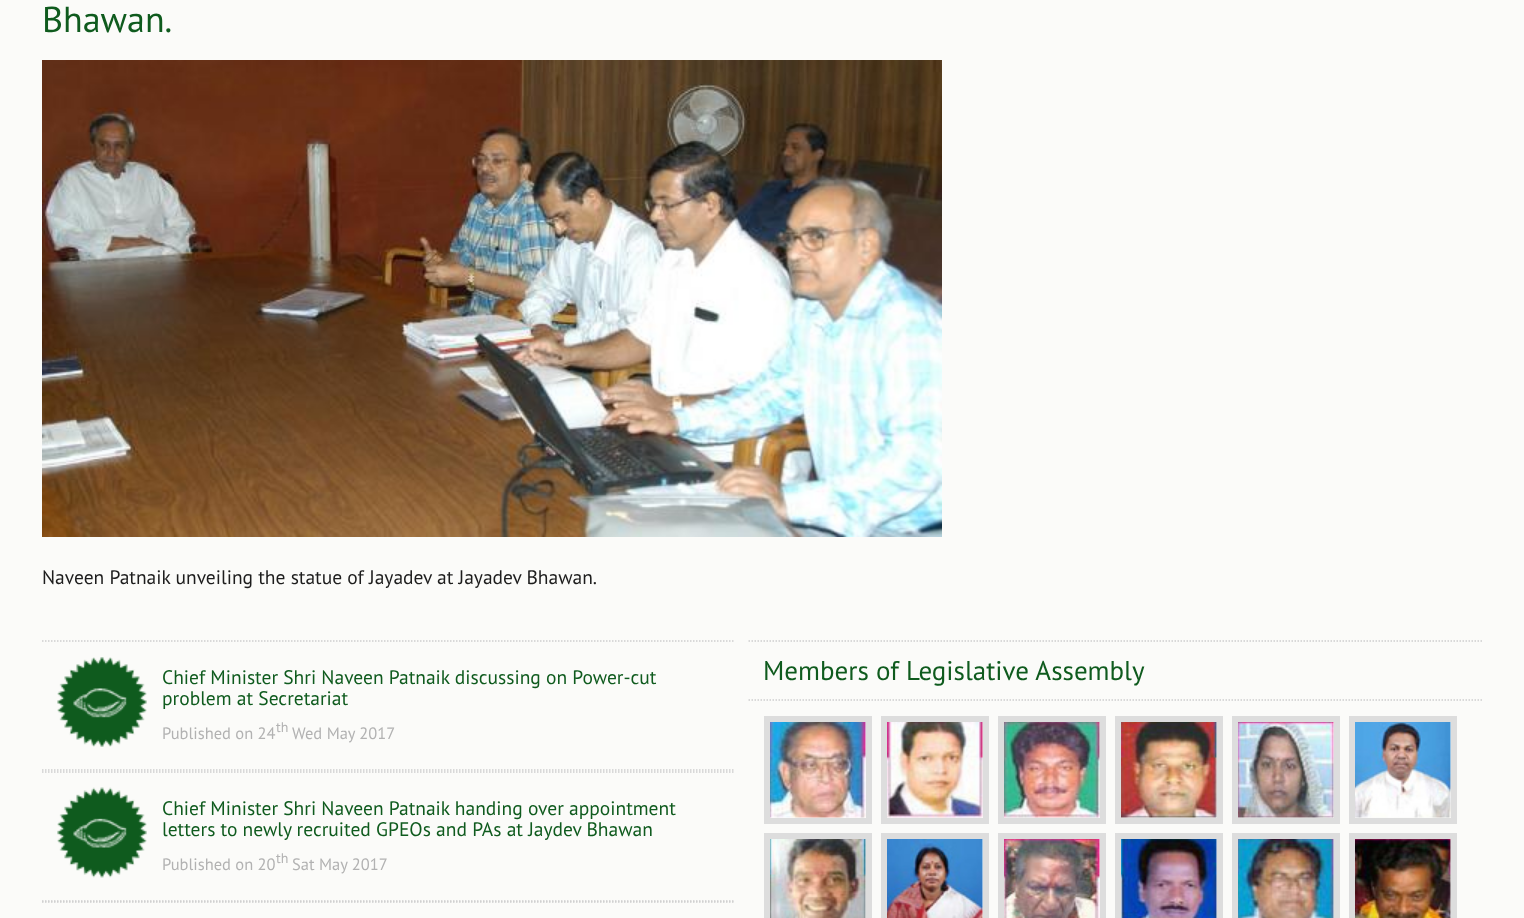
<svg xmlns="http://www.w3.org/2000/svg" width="1524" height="918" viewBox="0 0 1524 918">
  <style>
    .t1 { font: 36px PT Sans; fill: #0f5b1e; }
    .t2 { font: 19.5px PT Sans; fill: #1d1d1d; }
    .t3 { font: 19.5px PT Sans; fill: #0f5b1e; }
    .t4 { font: 16.5px PT Sans; fill: #b2b2b2; }
    .t5 { font: 14px PT Sans; fill: #b2b2b2; }
    .t6 { font: 27px PT Sans; fill: #0f5b1e; }
  </style>
  <rect width="100%" height="100%" fill="#fbfbf9"/>
  <text x="42" y="32" class="t1">Bhawan.</text>
  <image x="42" y="60" width="900" height="477" href="images/1.png"/>
  <text x="42" y="584" class="t2">Naveen Patnaik unveiling the statue of Jayadev at Jayadev Bhawan.</text>
  <path d="M42 641H733.5" fill="none" stroke="#cecece" stroke-width="1.5" stroke-dasharray="1.5 1.5"/>
  <path d="M42 770H733.5" fill="none" stroke="#cecece" stroke-width="1.5" stroke-dasharray="1.5 1.5"/>
  <image x="57" y="657" width="90" height="90" href="images/2.png"/>
  <text x="162" y="684" class="t3">Chief Minister Shri Naveen Patnaik discussing on Power-cut</text>
  <text x="162" y="705" class="t3">problem at Secretariat</text>
  <text x="162" y="739" class="t4">Published on 24</text>
  <text x="276" y="732" class="t5">th</text>
  <text x="292" y="739" class="t4">Wed May 2017</text>
  <path d="M42 772H733.5" fill="none" stroke="#cecece" stroke-width="1.5" stroke-dasharray="1.5 1.5"/>
  <path d="M42 901H733.5" fill="none" stroke="#cecece" stroke-width="1.5" stroke-dasharray="1.5 1.5"/>
  <image x="57" y="787" width="90" height="91" href="images/3.png"/>
  <text x="162" y="815" class="t3">Chief Minister Shri Naveen Patnaik handing over appointment</text>
  <text x="162" y="836" class="t3">letters to newly recruited GPEOs and PAs at Jaydev Bhawan</text>
  <text x="162" y="870" class="t4">Published on 20</text>
  <text x="276" y="863" class="t5">th</text>
  <text x="292" y="870" class="t4">Sat May 2017</text>
  <path d="M42 902H733.5" fill="none" stroke="#cecece" stroke-width="1.5" stroke-dasharray="1.5 1.5"/>
  <path d="M748.5 641H1482" fill="none" stroke="#cecece" stroke-width="1.5" stroke-dasharray="1.5 1.5"/>
  <path d="M748.5 700H1482" fill="none" stroke="#cecece" stroke-width="1.5" stroke-dasharray="1.5 1.5"/>
  <text x="763" y="680" class="t6">Members of Legislative Assembly</text>
  <image x="770" y="722" width="96" height="96" href="images/4.png"/>
  <rect x="767" y="719" width="102" height="102" fill="none" stroke="#ddd" stroke-width="6"/>
  <image x="887" y="722" width="96" height="96" href="images/5.png"/>
  <rect x="884" y="719" width="102" height="102" fill="none" stroke="#ddd" stroke-width="6"/>
  <image x="1004" y="722" width="96" height="96" href="images/6.png"/>
  <rect x="1001" y="719" width="102" height="102" fill="none" stroke="#ddd" stroke-width="6"/>
  <image x="1121" y="722" width="96" height="96" href="images/7.png"/>
  <rect x="1118" y="719" width="102" height="102" fill="none" stroke="#ddd" stroke-width="6"/>
  <image x="1238" y="722" width="96" height="96" href="images/8.png"/>
  <rect x="1235" y="719" width="102" height="102" fill="none" stroke="#ddd" stroke-width="6"/>
  <image x="1355" y="722" width="96" height="96" href="images/9.png"/>
  <rect x="1352" y="719" width="102" height="102" fill="none" stroke="#ddd" stroke-width="6"/>
  <image x="770" y="839" width="96" height="79" href="images/10.png"/>
  <rect x="767" y="836" width="102" height="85" fill="none" stroke="#ddd" stroke-width="6"/>
  <image x="887" y="839" width="96" height="79" href="images/11.png"/>
  <rect x="884" y="836" width="102" height="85" fill="none" stroke="#ddd" stroke-width="6"/>
  <image x="1004" y="839" width="96" height="79" href="images/12.png"/>
  <rect x="1001" y="836" width="102" height="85" fill="none" stroke="#ddd" stroke-width="6"/>
  <image x="1121" y="839" width="96" height="79" href="images/13.png"/>
  <rect x="1118" y="836" width="102" height="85" fill="none" stroke="#ddd" stroke-width="6"/>
  <image x="1238" y="839" width="96" height="79" href="images/14.png"/>
  <rect x="1235" y="836" width="102" height="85" fill="none" stroke="#ddd" stroke-width="6"/>
  <image x="1355" y="839" width="96" height="79" href="images/15.png"/>
  <rect x="1352" y="836" width="102" height="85" fill="none" stroke="#ddd" stroke-width="6"/>
</svg>
